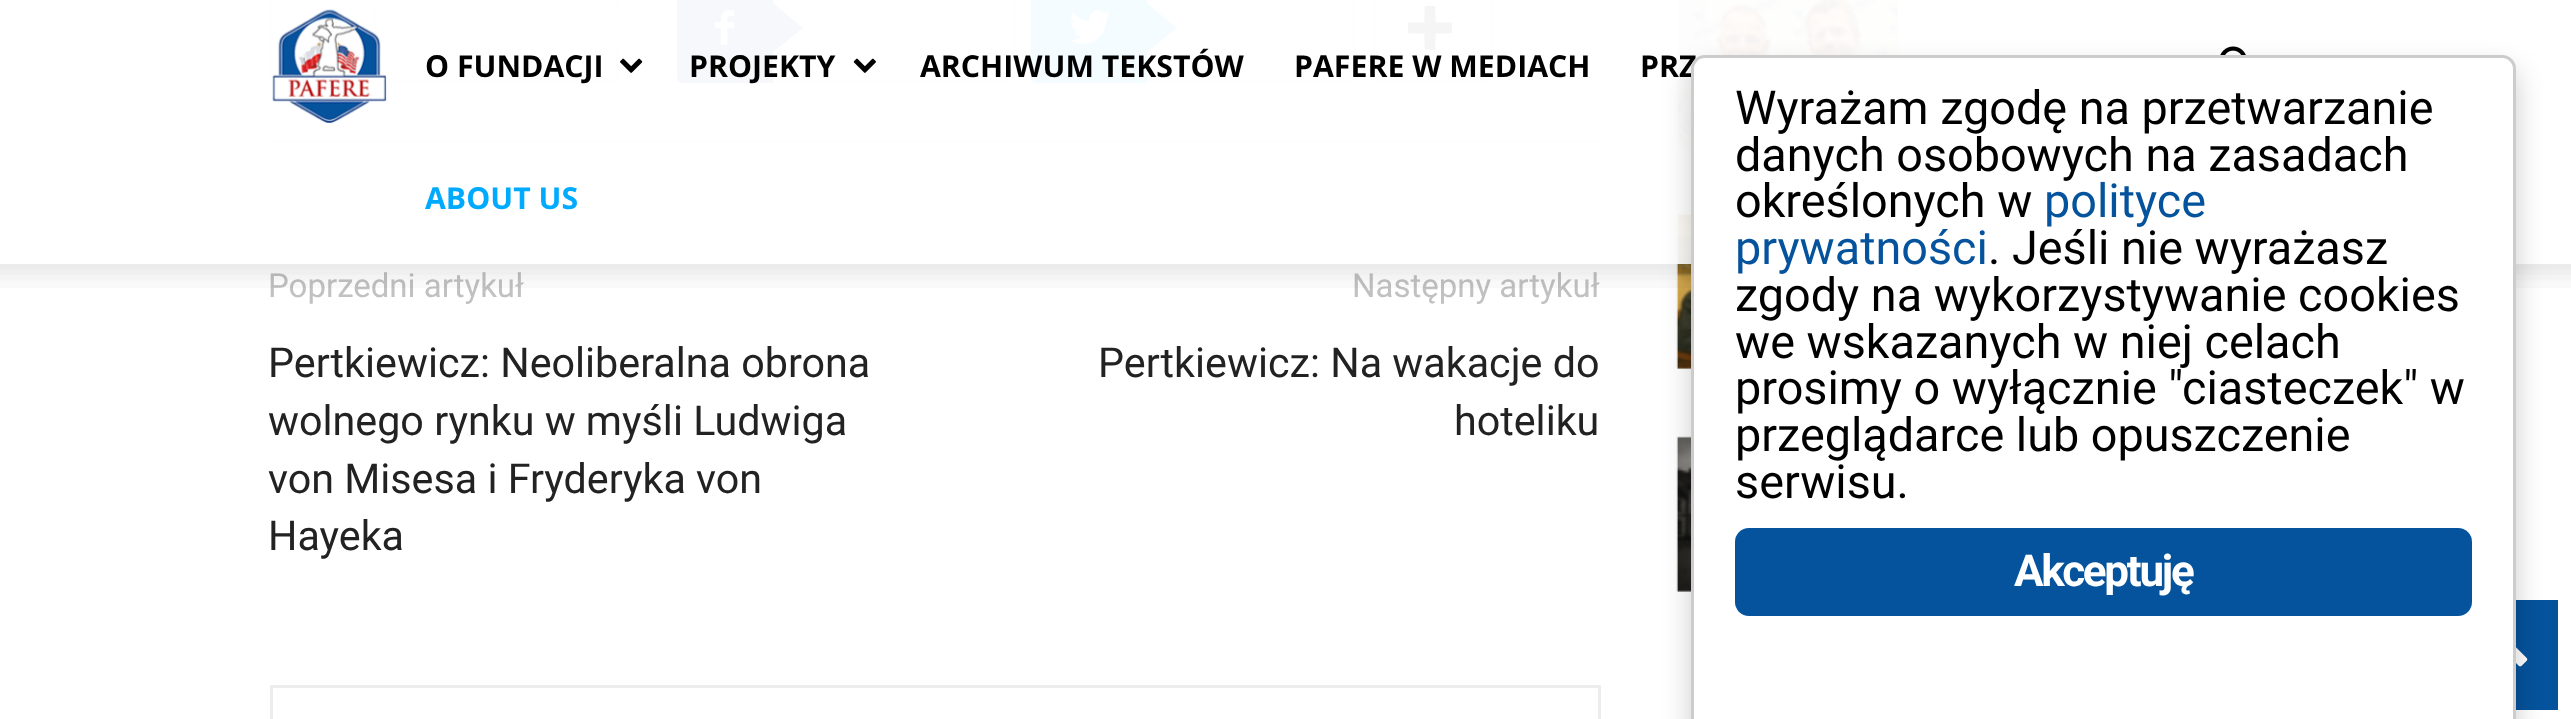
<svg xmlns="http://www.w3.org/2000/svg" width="2571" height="719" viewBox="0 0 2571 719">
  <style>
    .t1 { font: bold 30.25px Open Sans; fill: #000; }
    .t2 { font: bold 30.25px Open Sans; fill: #00abff; }
    .t3 { font: 33px Roboto; fill: #c1c1c1; }
    .t4 { font: 41.25px Roboto; fill: #222; }
    .t5 { font: 46.75px Roboto; fill: #000; }
    .t6 { font: 46.75px Roboto; fill: #05539c; }
    .t7 { font: bold 44px Roboto; letter-spacing: -2.25px; fill: #fff; }
  </style>
  <rect width="100%" height="100%" fill="#fff"/>
  <rect x="270" y="140" width="1331" height="3" fill="#ededed"/>
  <rect x="271.5" y="-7.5" width="346" height="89" rx="4.5" fill="none" stroke="#e9e9e9" stroke-width="3"/>
  <path d="M616 52V3L646 28Z" fill="#e9e9e9"/>
  <rect x="374" y="8" width="3" height="29" fill="#ebebeb"/>
  <path d="M616 50V6L644 28Z" fill="#fff"/>
  <rect x="765" y="80" width="247" height="3" fill="#e9e9e9"/>
  <path d="M683-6H773V83H683C679.5 83 677 80.5 677 77V0C677-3.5 679.5-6 683-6Z" fill="#516eab"/>
  <image x="715" y="10" width="20" height="35" href="images/6.png"/>
  <path d="M773 52V3L803 28Z" fill="#516eab"/>
  <rect x="1012" y="0" width="3" height="80" fill="#e9e9e9"/>
  <rect x="1139" y="80" width="214" height="3" fill="#e9e9e9"/>
  <path d="M1037-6H1147V83H1037C1033.5 83 1031 80.5 1031 77V0C1031-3.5 1033.5-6 1037-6Z" fill="#29c5f6"/>
  <image x="1070" y="10" width="41" height="34" href="images/7.png"/>
  <path d="M1147 52V3L1177 28Z" fill="#29c5f6"/>
  <rect x="1353" y="0" width="3" height="80" fill="#e9e9e9"/>
  <rect x="1373.5" y="-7.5" width="118" height="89" rx="4.5" fill="none" stroke="#e9e9e9" stroke-width="3"/>
  <image x="1408" y="5" width="44" height="45" href="images/8.png"/>
  <image x="1676" y="0" width="222" height="146" href="images/9.png"/>
  <image x="1676" y="213" width="15" height="156" href="images/10.png"/>
  <rect x="270" y="0" width="1628" height="264" fill="#fffffff2"/>
  <image x="272" y="9" width="115" height="114" href="images/1.png"/>
  <text x="425" y="77" class="t1">O FUNDACJI</text>
  <image x="620" y="58" width="23" height="15" href="images/2.png"/>
  <text x="689" y="77" class="t1">PROJEKTY</text>
  <image x="853" y="58" width="23" height="15" href="images/3.png"/>
  <text x="920" y="77" class="t1">ARCHIWUM TEKSTÓW</text>
  <text x="1294" y="77" class="t1">PAFERE W MEDIACH</text>
  <text x="1640" y="77" class="t1">PRZ</text>
  <text x="425" y="209" class="t2">ABOUT US</text>
  <image x="2220" y="46" width="26" height="9" href="images/4.png"/>
  <text x="268" y="297" class="t3">Poprzedni artykuł</text>
  <text x="1352" y="297" class="t3">Następny artykuł</text>
  <image x="0" y="264" width="2571" height="24" href="images/5.png"/>
  <text x="268" y="377" class="t4">Pertkiewicz: Neoliberalna obrona</text>
  <text x="268" y="435" class="t4">wolnego rynku w myśli Ludwiga</text>
  <text x="268" y="493" class="t4">von Misesa i Fryderyka von</text>
  <text x="268" y="550" class="t4">Hayeka</text>
  <text x="1098" y="377" class="t4">Pertkiewicz: Na wakacje do</text>
  <text x="1454" y="435" class="t4">hoteliku</text>
  <rect x="271.5" y="686.5" width="1328" height="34" fill="none" stroke="#ededed" stroke-width="3"/>
  <image x="1676" y="436" width="15" height="156" href="images/11.png"/>
  <rect x="2516" y="600" width="42" height="110" fill="#05539c"/>
  <image x="2516" y="647" width="12" height="20" href="images/12.png"/>
  <rect x="1691" y="69" width="825" height="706" rx="14" fill="#00000033" filter="blur(14px)"/>
  <rect x="1692.5" y="56.5" width="822" height="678" rx="12.5" fill="#fff" stroke="#ccc" stroke-width="3"/>
  <text x="1735" y="124" class="t5">Wyrażam zgodę na przetwarzanie</text>
  <text x="1735" y="171" class="t5">danych osobowych na zasadach</text>
  <text x="1735" y="217" class="t5">określonych w</text>
  <text x="2044" y="217" class="t6">polityce</text>
  <text x="1735" y="264" class="t6">prywatności</text>
  <text x="1988" y="264" class="t5">. Jeśli nie wyrażasz</text>
  <text x="1735" y="311" class="t5">zgody na wykorzystywanie cookies</text>
  <text x="1735" y="358" class="t5">we wskazanych w niej celach</text>
  <text x="1735" y="404" class="t5">prosimy o wyłącznie "ciasteczek" w</text>
  <text x="1735" y="451" class="t5">przeglądarce lub opuszczenie</text>
  <text x="1735" y="498" class="t5">serwisu.</text>
  <rect x="1735" y="528" width="737" height="88" rx="14" fill="#05539c"/>
  <text x="2014" y="586" class="t7">Akceptuję</text>
</svg>
